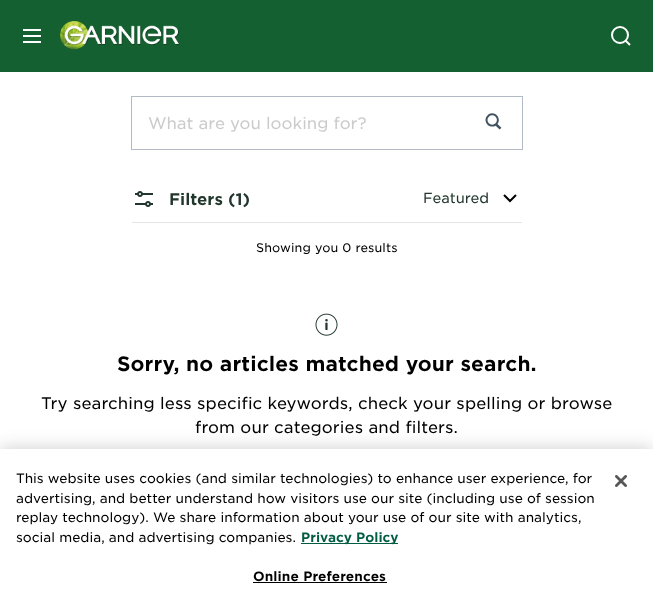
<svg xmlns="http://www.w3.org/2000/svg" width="653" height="613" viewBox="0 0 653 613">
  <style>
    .t1 { font: 300 16px 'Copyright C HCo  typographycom'; fill: #cbcbcb; }
    .t2 { font: 16px 'Copyright C HCo  typographycom'; fill: #21362c; }
    .t3 { font: 300 14px 'Copyright C HCo  typographycom'; fill: #21362c; }
    .t4 { font: 300 12px 'Copyright C HCo  typographycom'; letter-spacing: 0.1px; fill: #000; }
    .t5 { font: 20px 'Copyright C HCo  typographycom'; letter-spacing: 0.1px; fill: #000; }
    .t6 { font: 300 16px 'Copyright C HCo  typographycom'; letter-spacing: 0.1px; fill: #000; }
    .t7 { font: 300 13px 'Copyright C HCo  typographycom'; fill: #000; }
    .t8 { font: 13px 'Copyright C HCo  typographycom'; fill: #005c43; }
    .t9 { font: 13px 'Copyright C HCo  typographycom'; letter-spacing: 0.1px; fill: #000; }
  </style>
  <rect width="100%" height="100%" fill="#fff"/>
  <rect x="0" y="0" width="653" height="72" fill="#156031"/>
  <rect x="23" y="29" width="18" height="2" fill="#fff"/>
  <rect x="23" y="35" width="18" height="2" fill="#fff"/>
  <rect x="23" y="41" width="18" height="2" fill="#fff"/>
  <image x="60" y="21" width="120" height="29" href="images/1.png"/>
  <circle cx="620" cy="35" r="8" fill="none" stroke="#fff" stroke-width="2"/>
  <path d="M625.5 40.5L630 45" fill="none" stroke="#fff" stroke-width="2" stroke-linejoin="round"/>
  <rect x="131.5" y="96.5" width="391" height="53" fill="none" stroke="#b1bac5"/>
  <text x="148" y="129" class="t1">What are you looking for?</text>
  <image x="485" y="113" width="17" height="17" href="images/2.png"/>
  <rect x="132" y="222" width="390" height="1" fill="#e5e5e9"/>
  <image x="135" y="191" width="18" height="16" href="images/3.png"/>
  <text x="169" y="205" class="t2">Filters (1)</text>
  <text x="423" y="203" class="t3">Featured</text>
  <path d="M504 195L510 201L516 195" fill="none" stroke="#000" stroke-width="2"/>
  <text x="256" y="252" class="t4">Showing you 0 results</text>
  <image x="315" y="313" width="23" height="23" href="images/4.png"/>
  <text x="117" y="371" class="t5">Sorry, no articles matched your search.</text>
  <text x="41" y="409" class="t6">Try searching less specific keywords, check your spelling or browse</text>
  <text x="195" y="433" class="t6">from our categories and filters.</text>
  <rect x="0" y="449" width="653" height="164" fill="#00000033" filter="blur(9px)"/>
  <rect x="0" y="449" width="653" height="164" fill="#fff"/>
  <text x="16" y="483" class="t7">This website uses cookies (and similar technologies) to enhance user experience, for</text>
  <text x="16" y="503" class="t7">advertising, and better understand how visitors use our site (including use of session</text>
  <text x="16" y="522" class="t7">replay technology). We share information about your use of our site with analytics,</text>
  <text x="16" y="542" class="t7">social media, and advertising companies.</text>
  <rect x="301" y="543" width="97" height="1" fill="#005c43"/>
  <text x="301" y="542" class="t8">Privacy Policy</text>
  <text x="253" y="581" class="t9">Online Preferences</text>
  <rect x="253" y="582" width="134" height="1" fill="#000"/>
  <image x="615" y="475" width="12" height="12" href="images/5.png"/>
</svg>
